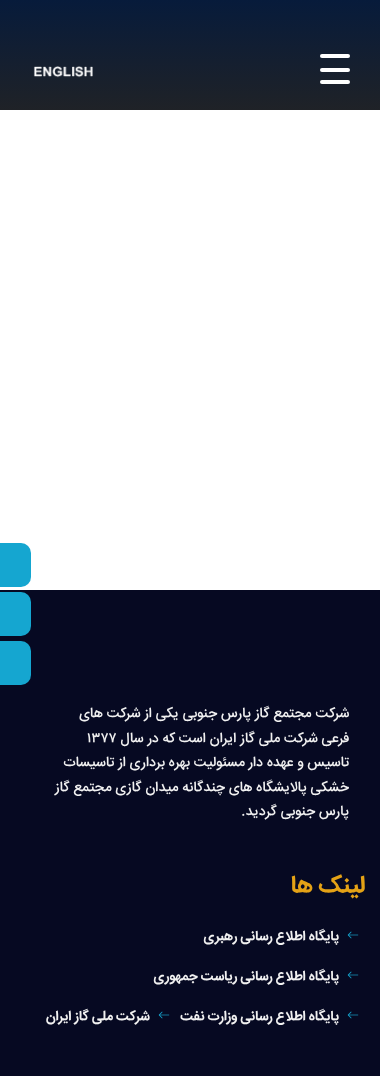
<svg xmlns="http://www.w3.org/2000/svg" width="380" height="1076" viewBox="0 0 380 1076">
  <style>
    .t1 { font: 500 14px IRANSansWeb; direction: rtl; fill: #f1f1f1; }
    .t2 { font: 500 14px IRANSansWeb; fill: #f1f1f1; }
    .t3 { font: bold 24px IRANSansWeb; direction: rtl; fill: #e4a216; }
    .t4 { font: bold 13.6px IRANSansWeb; direction: rtl; fill: #f1f1f1; }
  </style>
  <defs>
    <linearGradient id="g1" gradientUnits="userSpaceOnUse" x1="190" y1="110" x2="190" y2="0"><stop offset="0" stop-color="#1f2227"/><stop offset="1" stop-color="#071b3b"/></linearGradient>
  </defs>
  <rect width="100%" height="100%" fill="#fff"/>
  <rect x="0" y="0" width="380" height="110" fill="url(#g1)"/>
  <rect x="320" y="54" width="30" height="4" rx="2" fill="#fff"/>
  <rect x="320" y="68" width="30" height="4" rx="2" fill="#fff"/>
  <rect x="320" y="80" width="30" height="4" rx="2" fill="#fff"/>
  <image x="33" y="66" width="60" height="12" href="images/1.png"/>
  <rect x="0" y="590" width="380" height="486" fill="#060922"/>
  <rect x="-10" y="543" width="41" height="44" rx="10" fill="#15a6d0"/>
  <rect x="-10" y="592" width="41" height="44" rx="10" fill="#15a6d0"/>
  <rect x="-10" y="641" width="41" height="44" rx="10" fill="#15a6d0"/>
  <text x="349" y="717" class="t1">شرکت مجتمع گاز پارس جنوبی یکى از شرکت هاى</text>
  <text x="349" y="742" class="t1">فرعى شرکت ملى گاز ایران است که در سال</text>
  <text x="87" y="742" class="t2">۱۳۷۷</text>
  <text x="349" y="766" class="t1">تاسیس و عهده دار</text>
  <text x="245" y="766" class="t1">مسئولیت بهره بردارى از تاسیسات</text>
  <text x="349" y="791" class="t1">خشکى پالایشگاه هاى چندگانه میدان گازى مجتمع گاز</text>
  <text x="349" y="815" class="t1">پارس جنوبی گردید.</text>
  <text x="365" y="892" class="t3">لینک ها</text>
  <image x="347" y="931" width="12" height="8" href="images/2.png"/>
  <text x="339" y="940" class="t4">پایگاه اطلاع رسانی رهبری</text>
  <image x="347" y="971" width="12" height="8" href="images/2.png"/>
  <text x="339" y="980" class="t4">پایگاه اطلاع رسانی ریاست جمهوری</text>
  <image x="347" y="1011" width="12" height="8" href="images/2.png"/>
  <text x="339" y="1020" class="t4">پایگاه اطلاع رسانی وزارت نفت</text>
  <image x="158" y="1011" width="12" height="8" href="images/2.png"/>
  <text x="150" y="1020" class="t4">شرکت ملی گاز ایران</text>
</svg>
